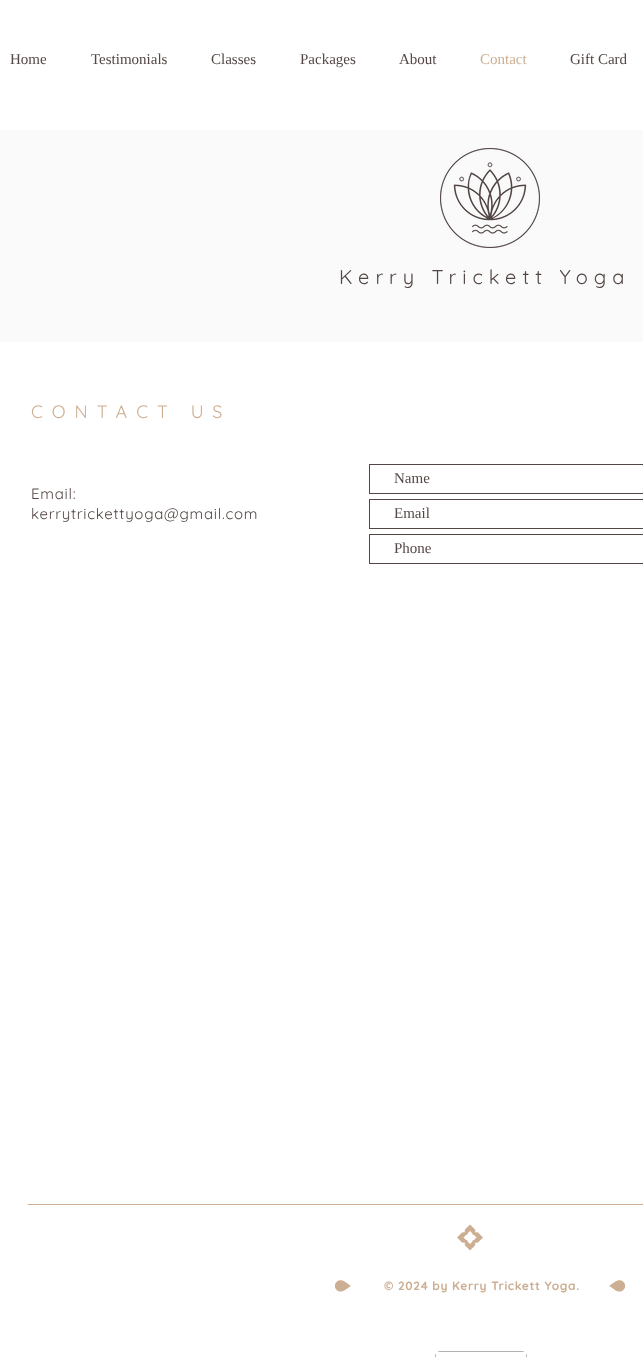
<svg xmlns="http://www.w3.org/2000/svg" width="643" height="1357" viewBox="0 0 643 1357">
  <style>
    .t1 { font: 15px Liberation Serif; fill: #534745; }
    .t2 { font: 15px Liberation Serif; fill: #ccae93; }
    .t3 { font: 20px Quicksand; letter-spacing: 6px; fill: #534745; }
    .t4 { font: 18px Quicksand; letter-spacing: 9px; fill: #ccae93; }
    .t5 { font: 15px Quicksand; letter-spacing: 0.75px; fill: #534745; }
    .t6 { font: bold 12px Quicksand; letter-spacing: 0.6px; fill: #ccae93; }
  </style>
  <rect width="100%" height="100%" fill="#fff"/>
  <text x="10" y="64" class="t1">Home</text>
  <text x="91" y="64" class="t1">Testimonials</text>
  <text x="211" y="64" class="t1">Classes</text>
  <text x="300" y="64" class="t1">Packages</text>
  <text x="399" y="64" class="t1">About</text>
  <text x="480" y="64" class="t2">Contact</text>
  <text x="570" y="64" class="t1">Gift Card</text>
  <rect x="0" y="130" width="643" height="212" fill="#fafafa"/>
  <image x="440" y="148" width="100" height="100" href="images/1.png"/>
  <text x="339" y="284" class="t3">Kerry Trickett Yoga</text>
  <text x="31" y="418" class="t4">CONTACT US</text>
  <text x="31" y="499" class="t5">Email:</text>
  <text x="31" y="519" class="t5">kerrytrickettyoga@gmail.com</text>
  <rect x="369.5" y="464.5" width="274" height="29" fill="none" stroke="#534745"/>
  <text x="394" y="483" class="t1">Name</text>
  <rect x="369.5" y="499.5" width="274" height="29" fill="none" stroke="#534745"/>
  <text x="394" y="518" class="t1">Email</text>
  <rect x="369.5" y="534.5" width="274" height="29" fill="none" stroke="#534745"/>
  <text x="394" y="553" class="t1">Phone</text>
  <rect x="28" y="1204" width="615" height="1" fill="#ccae93"/>
  <image x="457" y="1224" width="26" height="27" href="images/2.png"/>
  <image x="334" y="1280" width="17" height="12" href="images/3.png"/>
  <text x="384" y="1290" class="t6">© 2024 by Kerry Trickett Yoga.</text>
  <image x="609" y="1280" width="17" height="12" href="images/4.png"/>
  <rect x="435.5" y="1351.5" width="91" height="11" rx="4.5" fill="none" stroke="#b3b3b3"/>
  <rect x="436" y="1352" width="90" height="3" fill="#fff"/>
</svg>
